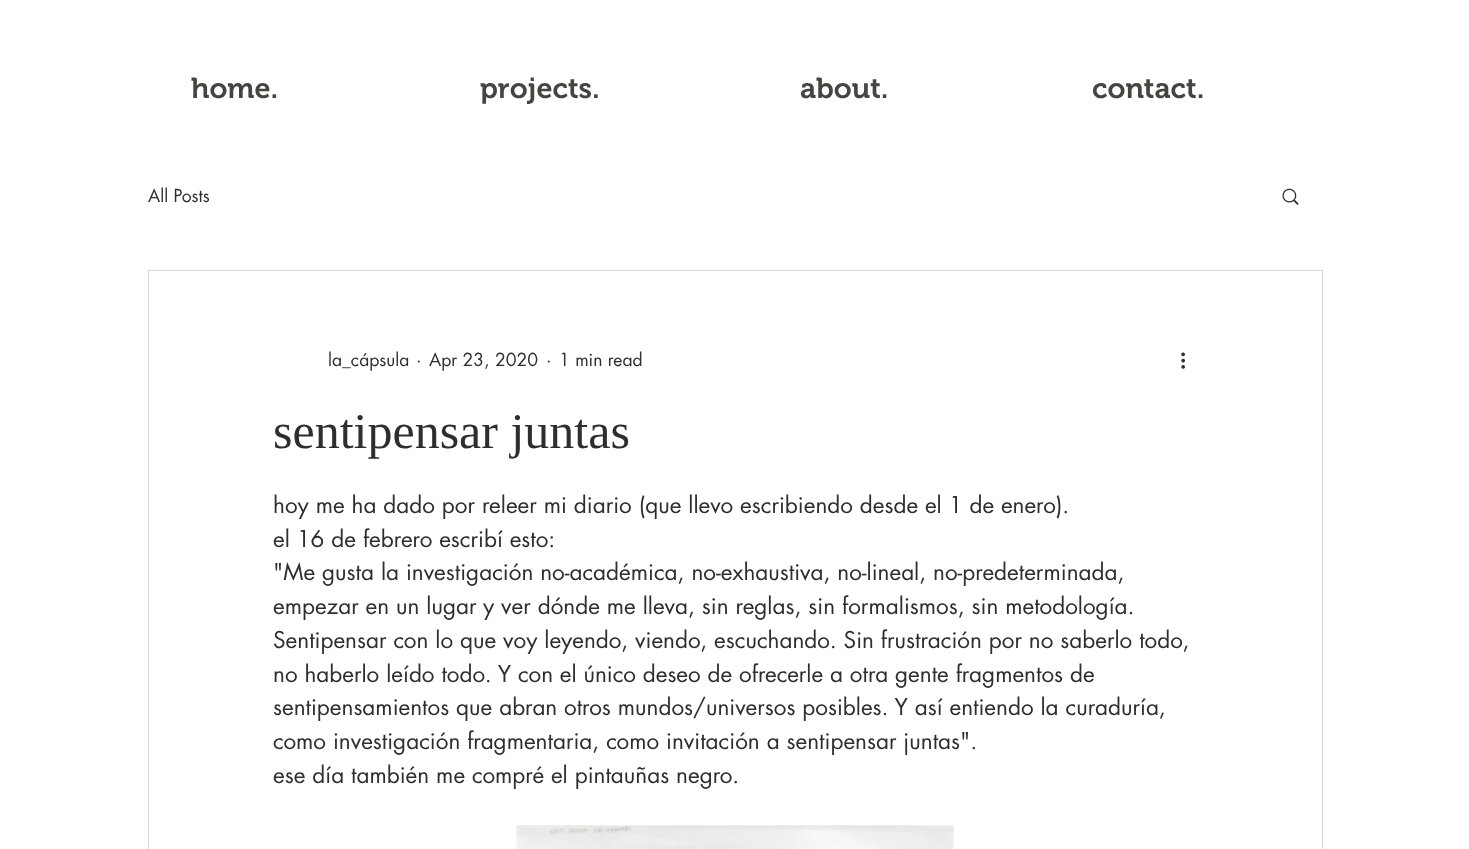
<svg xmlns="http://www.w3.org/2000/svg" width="1469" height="849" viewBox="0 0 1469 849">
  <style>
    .t1 { font: 600 28.75px 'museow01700'; fill: #444440; }
    .t2 { font: 17.5px futura; fill: #2f2e2e; }
    .t3 { font: 50px Liberation Serif; fill: #2f2e2e; }
    .t4 { font: 22.5px futura; fill: #2f2e2e; }
  </style>
  <rect width="100%" height="100%" fill="#fff"/>
  <text x="191" y="98" class="t1">home.</text>
  <text x="480" y="98" class="t1">projects.</text>
  <text x="800" y="98" class="t1">about.</text>
  <text x="1092" y="98" class="t1">contact.</text>
  <text x="148" y="202" class="t2">All Posts</text>
  <image x="1282" y="188" width="17" height="17" href="images/1.png"/>
  <rect x="148.5" y="270.5" width="1174" height="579" fill="none" stroke="#d8d8d8"/>
  <text x="328" y="366" class="t2">la_cápsula</text>
  <text x="416" y="366" class="t2">·</text>
  <text x="429" y="366" class="t2">Apr 23, 2020</text>
  <text x="546" y="366" class="t2">·</text>
  <text x="559" y="366" class="t2">1 min read</text>
  <image x="1181" y="352" width="4" height="17" href="images/2.png"/>
  <text x="273" y="448" class="t3">sentipensar juntas</text>
  <text x="273" y="513" class="t4">hoy me ha dado por releer mi diario (que llevo escribiendo desde el 1 de enero).</text>
  <text x="273" y="547" class="t4">el 16 de febrero escribí esto:</text>
  <text x="273" y="580" class="t4">"Me gusta la investigación no-académica, no-exhaustiva, no-lineal, no-predeterminada,</text>
  <text x="273" y="614" class="t4">empezar en un lugar y ver dónde me lleva, sin reglas, sin formalismos, sin metodología.</text>
  <text x="273" y="648" class="t4">Sentipensar con lo que voy leyendo, viendo, escuchando. Sin frustración por no saberlo todo,</text>
  <text x="273" y="682" class="t4">no haberlo leído todo. Y con el único deseo de ofrecerle a otra gente fragmentos de</text>
  <text x="273" y="715" class="t4">sentipensamientos que abran otros mundos/universos posibles. Y así entiendo la curaduría,</text>
  <text x="273" y="749" class="t4">como investigación fragmentaria, como invitación a sentipensar juntas".</text>
  <text x="273" y="783" class="t4">ese día también me compré el pintauñas negro.</text>
  <image x="516" y="825" width="438" height="24" href="images/3.png"/>
</svg>
